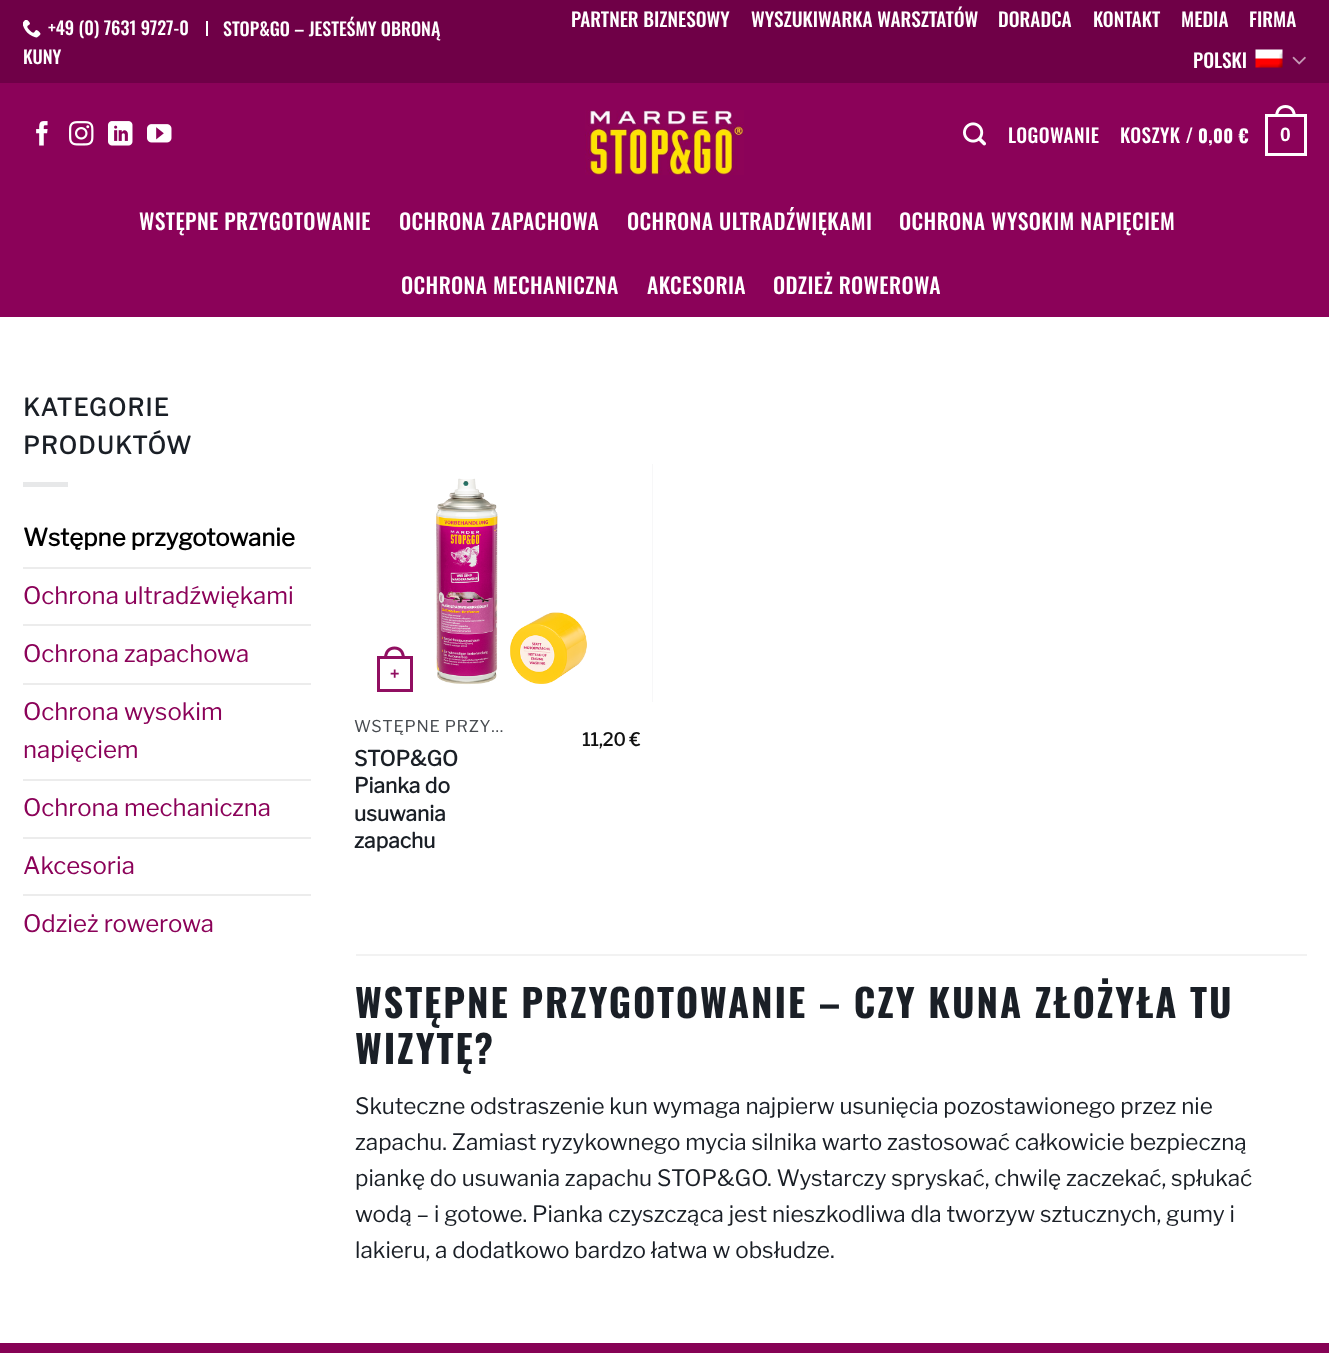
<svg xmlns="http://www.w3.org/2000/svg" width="1329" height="1353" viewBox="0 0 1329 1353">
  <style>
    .t1 { font: 500 18px Oswald; fill: #fff; }
    .t2 { font: 500 19.25px Oswald; fill: #fff; }
    .t3 { font: 500 19.25px Oswald; letter-spacing: 0.4px; fill: #fff; }
    .t4 { font: bold 18px Oswald; letter-spacing: 0.4px; fill: #fff; }
    .t5 { font: bold 19.25px Liberation Sans; letter-spacing: 0.4px; fill: #fff; }
    .t6 { font: 500 21.6px Oswald; letter-spacing: 0.4px; fill: #fff; }
    .t7 { font: bold 24px Libre Franklin; letter-spacing: 1.25px; fill: #1a1f26; }
    .t8 { font: bold 24px Libre Franklin; fill: #000; }
    .t9 { font: 100 24px Libre Franklin; fill: #8b0259; }
    .t10 { font: bold 16px Liberation Sans; fill: #910f61; }
    .t11 { font: 100 16.25px Libre Franklin; letter-spacing: 0.75px; fill: #484c51; }
    .t12 { font: bold 21px Libre Franklin; fill: #1a1f26; }
    .t13 { font: bold 18px Libre Franklin; fill: #111; }
    .t14 { font: bold 38.4px Oswald; letter-spacing: 1.9px; fill: #1a1f26; }
    .t15 { font: 100 22.5px Libre Franklin; fill: #1a1f26; }
  </style>
  <rect width="100%" height="100%" fill="#fff"/>
  <rect x="0" y="0" width="1329" height="83" fill="#6f0047"/>
  <image x="23" y="20" width="18" height="18" href="images/1.png"/>
  <text x="48" y="35" class="t1">+49 (0) 7631 9727-0</text>
  <rect x="206" y="21" width="2" height="15" fill="#fff"/>
  <text x="223" y="36" class="t1">STOP&amp;GO – JESTEŚMY OBRONĄ</text>
  <text x="23" y="64" class="t1">KUNY</text>
  <text x="571" y="27" class="t2">PARTNER BIZNESOWY</text>
  <text x="751" y="27" class="t2">WYSZUKIWARKA WARSZTATÓW</text>
  <text x="998" y="27" class="t2">DORADCA</text>
  <text x="1093" y="27" class="t2">KONTAKT</text>
  <text x="1181" y="27" class="t2">MEDIA</text>
  <text x="1249" y="27" class="t2">FIRMA</text>
  <text x="1193" y="68" class="t2">POLSKI</text>
  <image x="1255" y="49" width="28" height="19" href="images/2.png"/>
  <image x="1292" y="56" width="14" height="9" href="images/3.png"/>
  <rect x="0" y="83" width="1329" height="234" fill="#8b0259"/>
  <image x="36" y="121" width="12" height="25" href="images/4.png"/>
  <image x="69" y="121" width="25" height="25" href="images/5.png"/>
  <image x="108" y="121" width="25" height="25" href="images/6.png"/>
  <image x="147" y="124" width="25" height="19" href="images/7.png"/>
  <image x="585" y="110" width="159" height="65" href="images/8.png"/>
  <image x="963" y="122" width="23" height="24" href="images/9.png"/>
  <text x="1008" y="143" class="t3">LOGOWANIE</text>
  <text x="1120" y="143" class="t3">KOSZYK /</text>
  <text x="1198" y="143" class="t4">0,00 €</text>
  <rect x="1266.5" y="115.5" width="39" height="39" fill="none" stroke="#fff" stroke-width="3"/>
  <path d="M1285.5 105C1292.5 105 1296 110.5 1296 117H1275C1275 110.5 1278.5 105 1285.5 105ZM1285.5 108C1291 108 1293 112.5 1293 117H1278C1278 112.5 1280 108 1285.5 108Z" fill="#fff" fill-rule="evenodd"/>
  <text x="1280" y="141" class="t5">0</text>
  <text x="139" y="230" class="t6">WSTĘPNE PRZYGOTOWANIE</text>
  <text x="399" y="230" class="t6">OCHRONA ZAPACHOWA</text>
  <text x="627" y="230" class="t6">OCHRONA ULTRADŹWIĘKAMI</text>
  <text x="899" y="230" class="t6">OCHRONA WYSOKIM NAPIĘCIEM</text>
  <text x="401" y="294" class="t6">OCHRONA MECHANICZNA</text>
  <text x="647" y="294" class="t6">AKCESORIA</text>
  <text x="773" y="294" class="t6">ODZIEŻ ROWEROWA</text>
  <text x="23" y="416" class="t7">KATEGORIE</text>
  <text x="23" y="454" class="t7">PRODUKTÓW</text>
  <rect x="23" y="482" width="45" height="5" fill="#e7e8e9"/>
  <text x="23" y="546" class="t8">Wstępne przygotowanie</text>
  <rect x="23" y="567" width="288" height="2" fill="#ececec"/>
  <text x="23" y="604" class="t9">Ochrona ultradźwiękami</text>
  <rect x="23" y="624" width="288" height="2" fill="#ececec"/>
  <text x="23" y="662" class="t9">Ochrona zapachowa</text>
  <rect x="23" y="683" width="288" height="2" fill="#ececec"/>
  <text x="23" y="720" class="t9">Ochrona wysokim</text>
  <text x="23" y="758" class="t9">napięciem</text>
  <rect x="23" y="779" width="288" height="2" fill="#ececec"/>
  <text x="23" y="816" class="t9">Ochrona mechaniczna</text>
  <rect x="23" y="837" width="288" height="2" fill="#ececec"/>
  <text x="23" y="874" class="t9">Akcesoria</text>
  <rect x="23" y="894" width="288" height="2" fill="#ececec"/>
  <text x="23" y="932" class="t9">Odzież rowerowa</text>
  <rect x="652" y="464" width="1" height="238" fill="#f7f7f8"/>
  <image x="354" y="464" width="298" height="238" href="images/10.png"/>
  <rect x="378.5" y="657.5" width="33" height="33" fill="none" stroke="#910f61" stroke-width="3"/>
  <path d="M394.5 646.5C401.5 646.5 405 652 405 658.5H384C384 652 387.5 646.5 394.5 646.5ZM394.5 649.5C400 649.5 402 654 402 658.5H387C387 654 389 649.5 394.5 649.5Z" fill="#910f61" fill-rule="evenodd"/>
  <text x="390" y="679" class="t10">+</text>
  <text x="354" y="732" class="t11">WSTĘPNE PRZY…</text>
  <text x="354" y="766" class="t12">STOP&amp;GO</text>
  <text x="354" y="793" class="t12">Pianka do</text>
  <text x="354" y="821" class="t12">usuwania</text>
  <text x="354" y="848" class="t12">zapachu</text>
  <text x="582" y="746" class="t13">11,20 €</text>
  <rect x="356" y="954" width="951" height="2" fill="#f2f2f2"/>
  <text x="355" y="1018" class="t14">WSTĘPNE PRZYGOTOWANIE – CZY KUNA ZŁOŻYŁA TU</text>
  <text x="355" y="1064" class="t14">WIZYTĘ?</text>
  <text x="355" y="1114" class="t15">Skuteczne odstraszenie kun wymaga najpierw usunięcia pozostawionego przez nie</text>
  <text x="355" y="1150" class="t15">zapachu. Zamiast ryzykownego mycia silnika warto zastosować całkowicie bezpieczną</text>
  <text x="355" y="1186" class="t15">piankę do usuwania zapachu STOP&amp;GO. Wystarczy spryskać, chwilę zaczekać, spłukać</text>
  <text x="355" y="1222" class="t15">wodą – i gotowe. Pianka czyszcząca jest nieszkodliwa dla tworzyw sztucznych, gumy i</text>
  <text x="355" y="1258" class="t15">lakieru, a dodatkowo bardzo łatwa w obsłudze.</text>
  <rect x="0" y="1343" width="1329" height="10" fill="#860255"/>
</svg>
